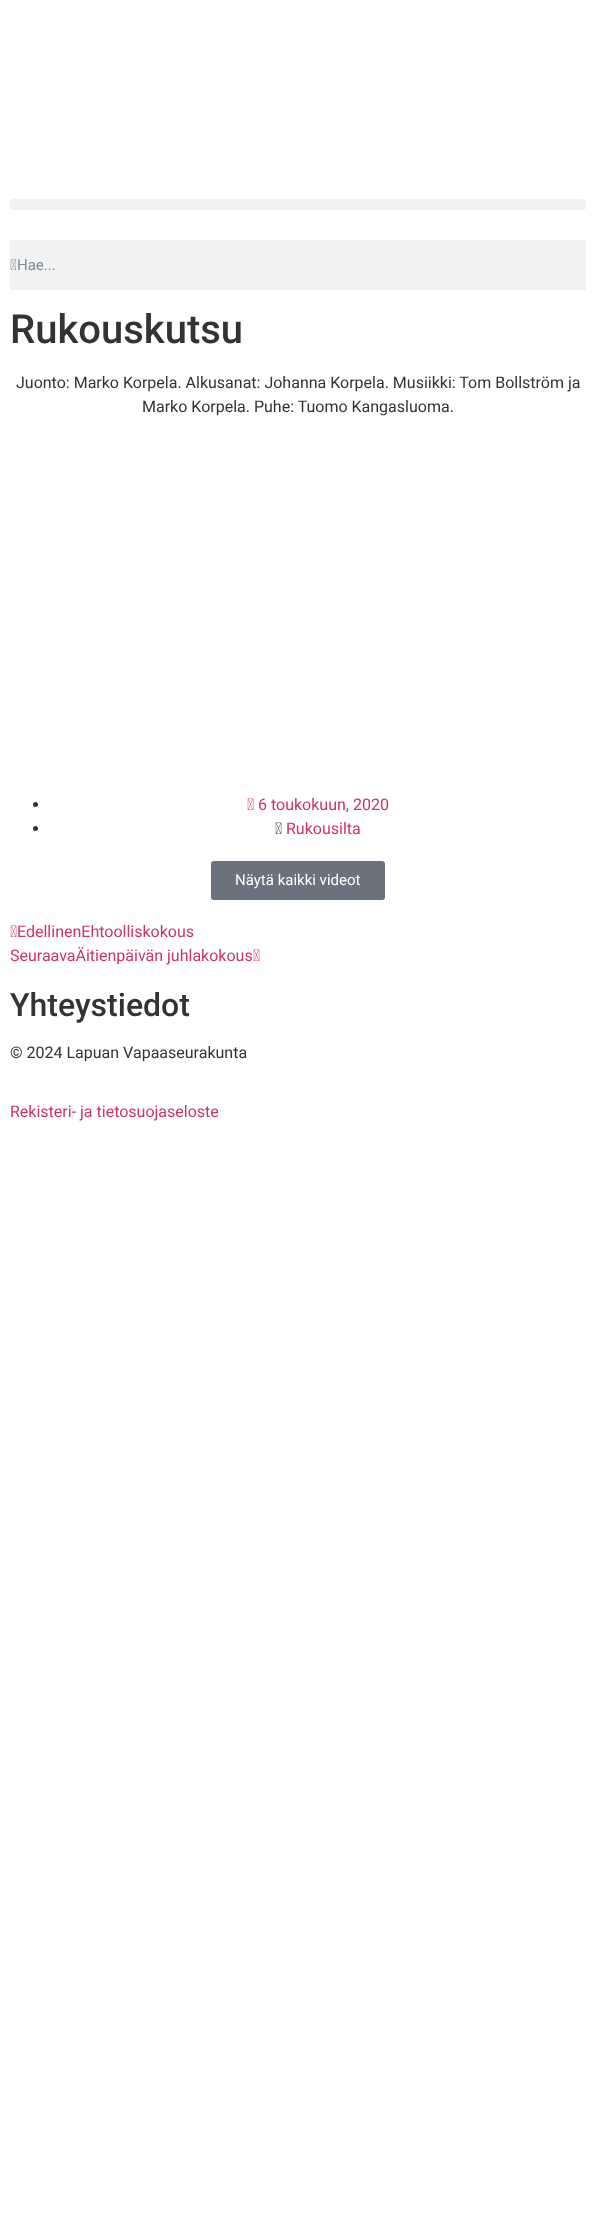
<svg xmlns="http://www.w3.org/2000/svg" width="596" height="2216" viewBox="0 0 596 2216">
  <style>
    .t1 { font: 15px Roboto; fill: #868a8e; }
    .t2 { font: 500 40px Roboto; fill: #333; }
    .t3 { font: 16px Roboto; fill: #333; }
    .t4 { font: 16px Roboto; fill: #c36; }
    .t5 { font: 15px Roboto; fill: #fff; }
    .t6 { font: 500 32px Roboto; fill: #333; }
  </style>
  <rect width="100%" height="100%" fill="#fff"/>
  <rect x="10" y="199" width="576" height="11" rx="3" fill="#f2f2f2"/>
  <rect x="10" y="240" width="576" height="50" fill="#f1f2f3"/>
  <image x="10" y="259" width="6" height="11" href="images/1.png"/>
  <text x="17" y="270" class="t1">Hae...</text>
  <text x="10" y="343" class="t2">Rukouskutsu</text>
  <text x="16" y="388" class="t3">Juonto: Marko Korpela. Alkusanat: Johanna Korpela. Musiikki: Tom Bollström ja</text>
  <text x="142" y="412" class="t3">Marko Korpela. Puhe: Tuomo Kangasluoma.</text>
  <circle cx="35.5" cy="804.5" r="2.5" fill="#333"/>
  <image x="247" y="798" width="7" height="12" href="images/2.png"/>
  <text x="258" y="810" class="t4">6 toukokuun, 2020</text>
  <circle cx="35.5" cy="828.5" r="2.5" fill="#333"/>
  <image x="275" y="822" width="7" height="12" href="images/3.png"/>
  <text x="286" y="834" class="t4">Rukousilta</text>
  <rect x="211" y="861" width="174" height="39" rx="3" fill="#69727d"/>
  <text x="235" y="885" class="t5">Näytä kaikki videot</text>
  <image x="10" y="925" width="7" height="12" href="images/2.png"/>
  <text x="17" y="937" class="t4">EdellinenEhtoolliskokous</text>
  <text x="10" y="961" class="t4">SeuraavaÄitienpäivän juhlakokous</text>
  <image x="253" y="949" width="7" height="12" href="images/2.png"/>
  <text x="10" y="1016" class="t6">Yhteystiedot</text>
  <text x="10" y="1058" class="t3">© 2024 Lapuan Vapaaseurakunta</text>
  <text x="10" y="1117" class="t4">Rekisteri- ja tietosuojaseloste</text>
</svg>
